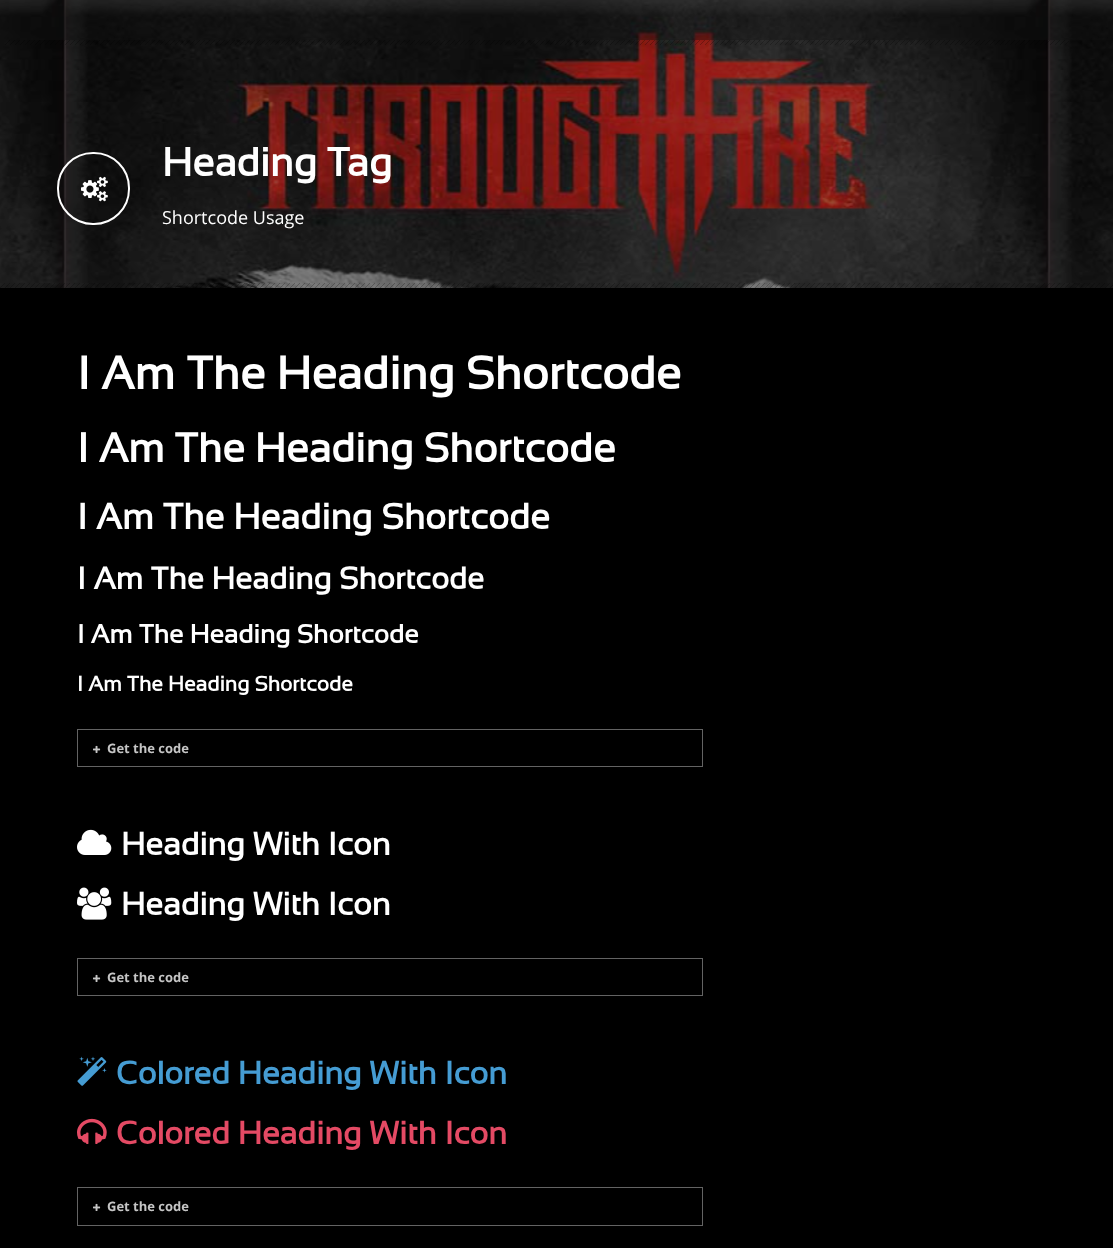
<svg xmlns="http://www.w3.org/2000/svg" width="1113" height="1248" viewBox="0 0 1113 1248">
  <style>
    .t1 { font: bold 40px Sansation; fill: #fff; }
    .t2 { font: 18px Open Sans; fill: #fff; }
    .t3 { font: bold 46px Sansation; fill: #fff; }
    .t4 { font: bold 41px Sansation; fill: #fff; }
    .t5 { font: bold 36px Sansation; fill: #fff; }
    .t6 { font: bold 31px Sansation; fill: #fff; }
    .t7 { font: bold 26px Sansation; fill: #fff; }
    .t8 { font: bold 21px Sansation; fill: #fff; }
    .t9 { font: bold 13px Open Sans; fill: #c5c5c5; }
    .t10 { font: bold 32px Sansation; fill: #fff; }
    .t11 { font: bold 32px Sansation; fill: #459cd3; }
    .t12 { font: bold 32px Sansation; fill: #e44a64; }
  </style>
  <rect width="100%" height="100%" fill="#000"/>
  <image x="0" y="0" width="1113" height="288" href="images/2.png"/>
  <rect x="0" y="0" width="1113" height="40" fill="#11111166"/>
  <image x="5" y="40" width="1064" height="5" href="images/1.png"/>
  <rect x="58" y="153" width="71" height="71" rx="35" fill="none" stroke="#fff" stroke-width="2"/>
  <image x="81" y="176" width="27" height="26" href="images/3.png"/>
  <text x="162" y="176" class="t1">Heading Tag</text>
  <text x="162" y="224" class="t2">Shortcode Usage</text>
  <image x="0" y="283" width="1113" height="5" href="images/4.png"/>
  <text x="77" y="389" class="t3">I Am The Heading Shortcode</text>
  <text x="77" y="462" class="t4">I Am The Heading Shortcode</text>
  <text x="77" y="529" class="t5">I Am The Heading Shortcode</text>
  <text x="77" y="589" class="t6">I Am The Heading Shortcode</text>
  <text x="77" y="643" class="t7">I Am The Heading Shortcode</text>
  <text x="77" y="691" class="t8">I Am The Heading Shortcode</text>
  <rect x="77.5" y="729.5" width="625" height="37" fill="none" stroke="#636363"/>
  <image x="93" y="745" width="8" height="8" href="images/5.png"/>
  <text x="107" y="753" class="t9">Get the code</text>
  <image x="77" y="829" width="35" height="26" href="images/6.png"/>
  <text x="121" y="855" class="t10">Heading With Icon</text>
  <image x="77" y="887" width="35" height="33" href="images/7.png"/>
  <text x="121" y="915" class="t10">Heading With Icon</text>
  <rect x="77.5" y="958.5" width="625" height="37" fill="none" stroke="#636363"/>
  <image x="93" y="974" width="8" height="8" href="images/5.png"/>
  <text x="107" y="982" class="t9">Get the code</text>
  <image x="77" y="1056" width="30" height="30" href="images/8.png"/>
  <text x="116" y="1084" class="t11">Colored Heading With Icon</text>
  <image x="77" y="1118" width="30" height="26" href="images/9.png"/>
  <text x="116" y="1144" class="t12">Colored Heading With Icon</text>
  <rect x="77.5" y="1187.5" width="625" height="38" fill="none" stroke="#636363"/>
  <image x="93" y="1203" width="8" height="8" href="images/5.png"/>
  <text x="107" y="1211" class="t9">Get the code</text>
</svg>
